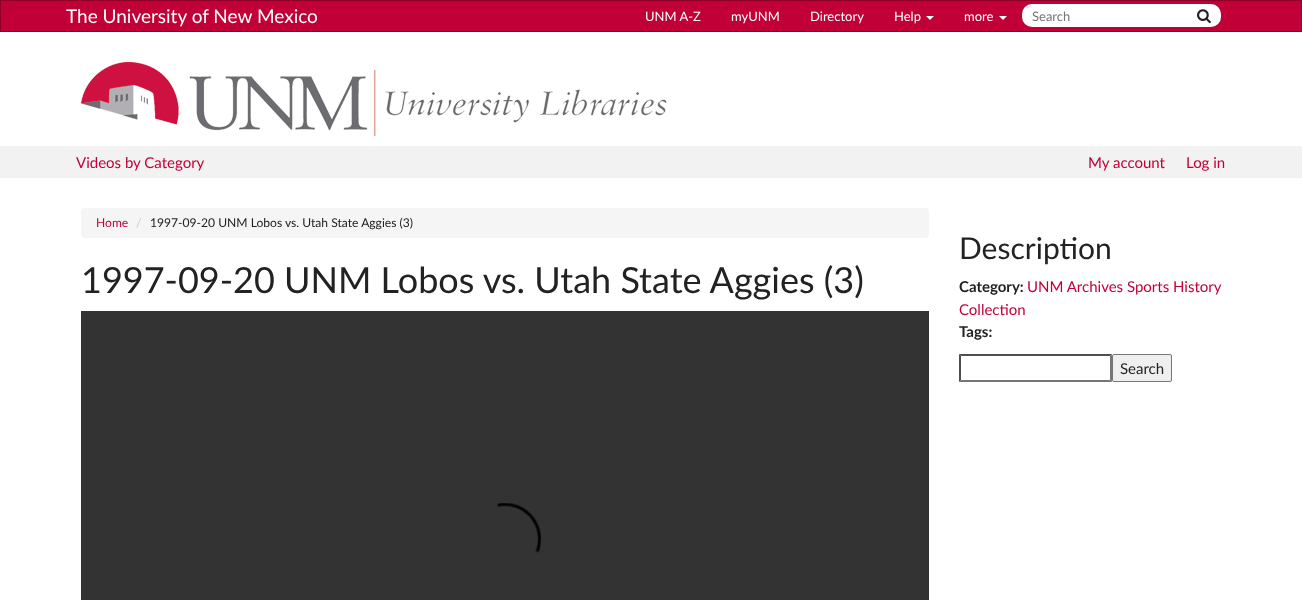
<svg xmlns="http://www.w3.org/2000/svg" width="1302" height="600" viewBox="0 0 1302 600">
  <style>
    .t1 { font: 19px Lato; fill: #fff; }
    .t2 { font: 13px Lato; fill: #fff; }
    .t3 { font: 13px Lato; fill: #757575; }
    .t4 { font: 15px Lato; fill: #c10037; }
    .t5 { font: 12.1px Lato; fill: #c10037; }
    .t6 { font: 12.1px Lato; fill: #ccc; }
    .t7 { font: 12.1px Lato; fill: #222; }
    .t8 { font: 36px Lato; fill: #222; }
    .t9 { font: 30px Lato; fill: #222; }
    .t10 { font: bold 15px Lato; fill: #222; }
    .t11 { font: 15px Lato; fill: #222; }
  </style>
  <rect width="100%" height="100%" fill="#fff"/>
  <rect x="0.5" y="0.5" width="1301" height="31" fill="#c10037" stroke="#8e0028"/>
  <text x="66" y="23" class="t1">The University of New Mexico</text>
  <text x="645" y="21" class="t2">UNM A-Z</text>
  <text x="731" y="21" class="t2">myUNM</text>
  <text x="810" y="21" class="t2">Directory</text>
  <text x="894" y="21" class="t2">Help</text>
  <path d="M926 16H934L930 20Z" fill="#fff"/>
  <text x="964" y="21" class="t2">more</text>
  <path d="M999 16H1007L1003 20Z" fill="#fff"/>
  <rect x="1022" y="4" width="199" height="23" rx="10" fill="#fff"/>
  <text x="1032" y="21" class="t3">Search</text>
  <image x="1197" y="9" width="14" height="15" href="images/1.png"/>
  <image x="81" y="62" width="586" height="74" href="images/2.png"/>
  <rect x="0" y="146" width="1302" height="32" fill="#f2f2f2"/>
  <text x="76" y="168" class="t4">Videos by Category</text>
  <text x="1088" y="168" class="t4">My account</text>
  <text x="1186" y="168" class="t4">Log in</text>
  <rect x="81" y="208" width="848" height="30" rx="4" fill="#f5f5f5"/>
  <text x="96" y="227" class="t5">Home</text>
  <text x="136" y="227" class="t6">/</text>
  <text x="150" y="227" class="t7">1997-09-20 UNM Lobos vs. Utah State Aggies (3)</text>
  <text x="81" y="293" class="t8">1997-09-20 UNM Lobos vs. Utah State Aggies (3)</text>
  <image x="81" y="311" width="848" height="289" href="images/3.png"/>
  <text x="959" y="259" class="t9">Description</text>
  <text x="959" y="292" class="t10">Category:</text>
  <text x="1027" y="292" class="t4">UNM Archives Sports History</text>
  <text x="959" y="315" class="t4">Collection</text>
  <text x="959" y="337" class="t10">Tags:</text>
  <path d="M959 354H1112L1110 356H961Z" fill="#4f4f4f"/>
  <path d="M1112 354V382L1110 380V356Z" fill="#767676"/>
  <path d="M1112 382H959L961 380H1110Z" fill="#767676"/>
  <path d="M959 382V354L961 356V380Z" fill="#4f4f4f"/>
  <rect x="1112.5" y="354.5" width="59" height="27" rx="1.5" fill="#efefef" stroke="#767676"/>
  <text x="1120" y="374" class="t11">Search</text>
</svg>
